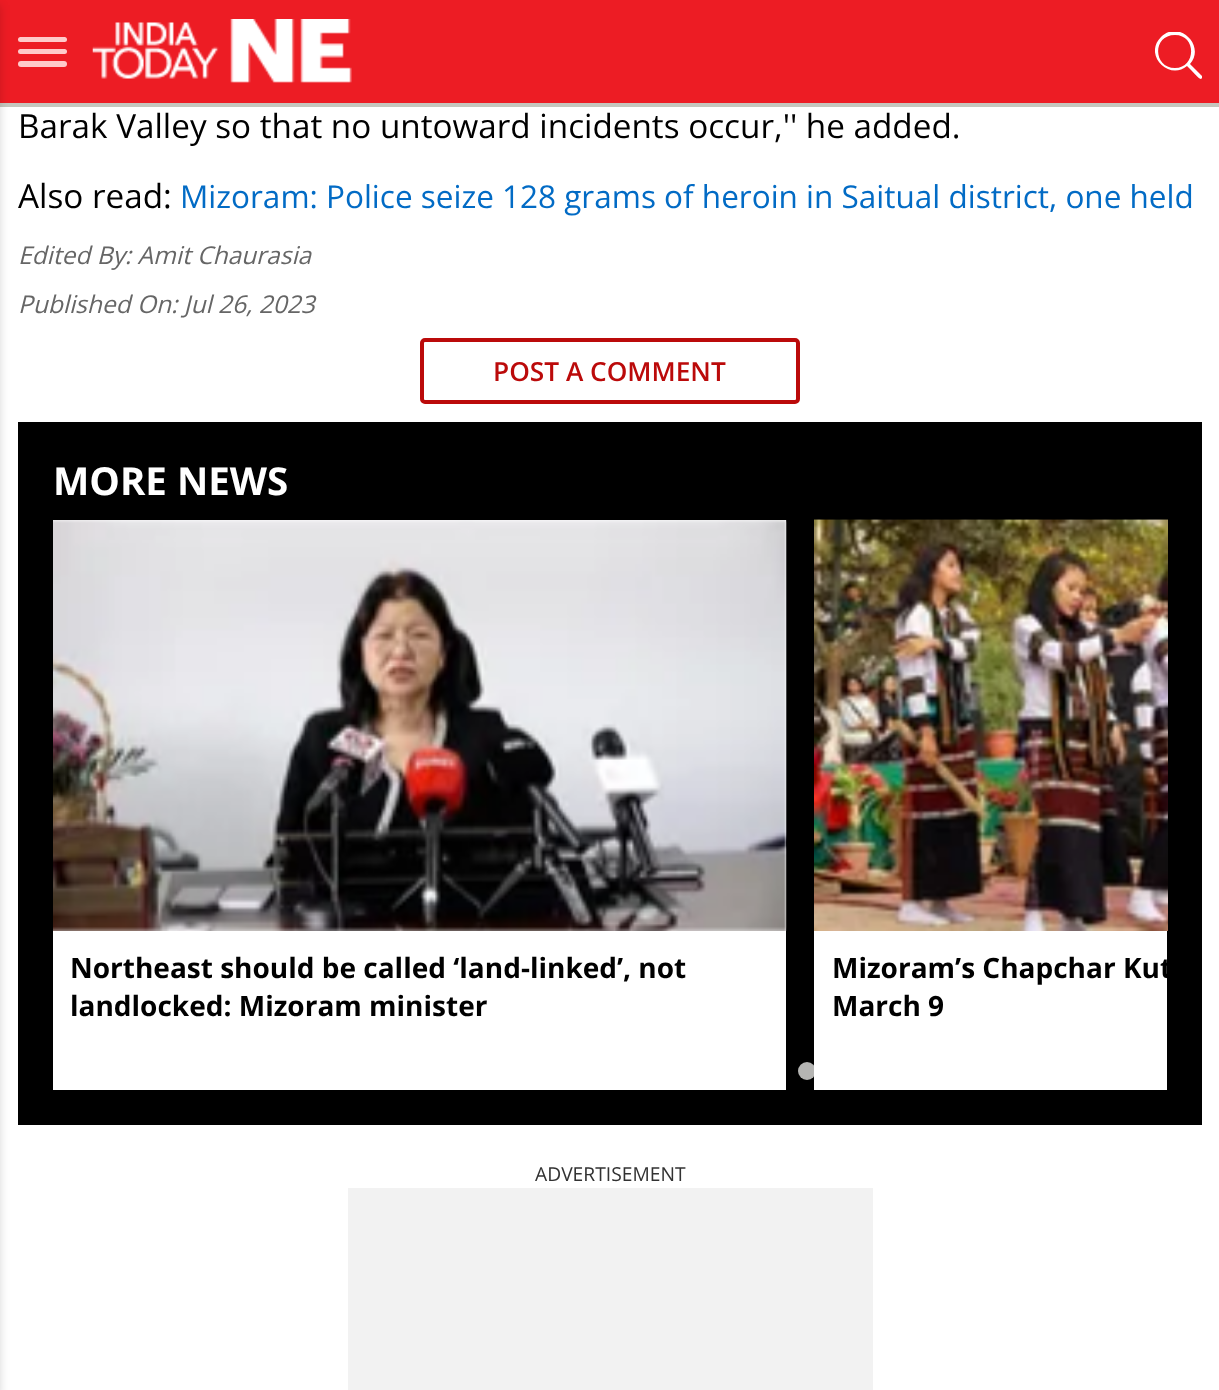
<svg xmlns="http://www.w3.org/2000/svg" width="1219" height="1390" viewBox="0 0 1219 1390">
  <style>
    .t1 { font: 33.25px Open Sans; fill: #000; }
    .t2 { font: 31.5px Open Sans; fill: #026bc5; }
    .t3 { font: italic 24.5px Open Sans; fill: #666; }
    .t4 { font: 600 26.25px Open Sans; fill: #bb0a0a; }
    .t5 { font: bold 38.5px Open Sans; fill: #fff; }
    .t6 { font: bold 28px Open Sans; fill: #000; }
    .t7 { font: 19.25px Open Sans; fill: #323232; }
  </style>
  <defs>
    <clipPath id="clip1"><rect x="1155" y="32" width="47" height="47"/></clipPath>
    <clipPath id="clip2"><rect x="831" y="949" width="336" height="77"/></clipPath>
  </defs>
  <rect width="100%" height="100%" fill="#fff"/>
  <rect x="0" y="0" width="1219" height="103" fill="#ed1c24"/>
  <rect x="0" y="103" width="1219" height="4" fill="#c5c6be"/>
  <rect x="18" y="37" width="49" height="5" rx="2.5" fill="#ffcaca"/>
  <rect x="18" y="49" width="49" height="5" rx="2.5" fill="#ffcaca"/>
  <rect x="18" y="61" width="49" height="6" rx="3" fill="#ffcaca"/>
  <image x="92" y="19" width="260" height="64" href="images/1.png"/>
  <g clip-path="url(#clip1)">
    <path d="M1202 76L1190 64C1206 46 1179 19 1161 37C1143 55 1169 81 1187 66L1191 70C1193 72 1199 79 1201 79C1202 78 1203 77 1202 76ZM1175 68C1153 68 1152 35 1175 35C1197 35 1196 68 1175 68Z" fill="#fff"/>
  </g>
  <rect x="-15" y="5" width="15" height="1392" fill="#00000029" filter="blur(5px)"/>
  <text x="18" y="138" class="t1">Barak Valley so that no untoward incidents occur,'' he added.</text>
  <text x="18" y="208" class="t1">Also read:</text>
  <text x="180" y="208" class="t2">Mizoram: Police seize 128 grams of heroin in Saitual district, one held</text>
  <text x="18" y="264" class="t3">Edited By: Amit Chaurasia</text>
  <text x="18" y="313" class="t3">Published On: Jul 26, 2023</text>
  <rect x="422" y="340" width="376" height="62" rx="3" fill="none" stroke="#bb0a0a" stroke-width="4"/>
  <text x="493" y="381" class="t4">POST A COMMENT</text>
  <rect x="18" y="422" width="1184" height="703" fill="#000"/>
  <text x="53" y="495" class="t5">MORE NEWS</text>
  <rect x="53" y="520" width="733" height="570" fill="#fff"/>
  <image x="53" y="520" width="734" height="411" href="images/2.png"/>
  <text x="70" y="978" class="t6">Northeast should be called ‘land-linked’, not</text>
  <text x="70" y="1016" class="t6">landlocked: Mizoram minister</text>
  <circle cx="807" cy="1071" r="9" fill="#b5b5b3"/>
  <rect x="814" y="931" width="353" height="159" fill="#fff"/>
  <image x="814" y="519" width="354" height="412" href="images/3.png"/>
  <g clip-path="url(#clip2)">
    <text x="832" y="978" class="t6">Mizoram’s Chapchar Kut</text>
  </g>
  <text x="832" y="1016" class="t6">March 9</text>
  <text x="535" y="1181" class="t7">ADVERTISEMENT</text>
  <rect x="348" y="1188" width="525" height="202" fill="#f2f2f2"/>
</svg>
